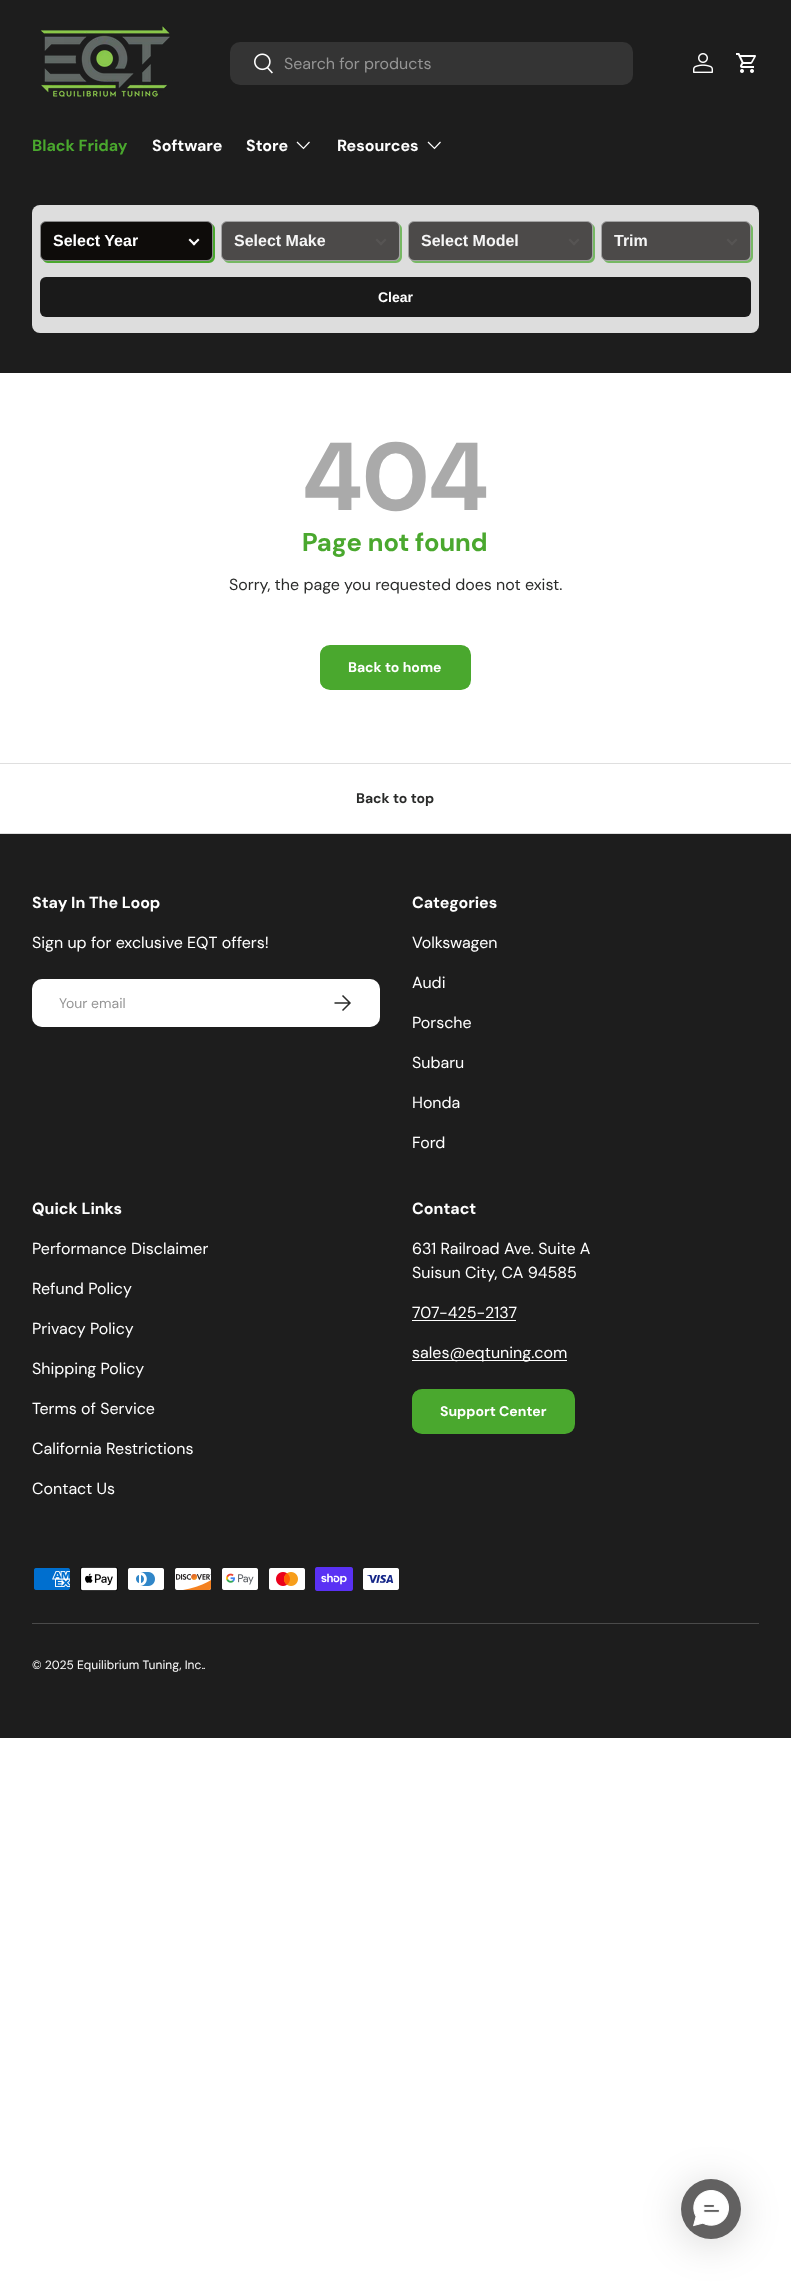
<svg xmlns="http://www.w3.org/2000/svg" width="791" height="2289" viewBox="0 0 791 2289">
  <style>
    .t1 { font: 16px DM Sans; fill: #959595; }
    .t2 { font: bold 16px 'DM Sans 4'; fill: #4aa82e; }
    .t3 { font: bold 16px 'DM Sans 4'; fill: #fff; }
    .t4 { font: bold 16px Liberation Sans; fill: #fff; }
    .t5 { font: bold 16px Liberation Sans; fill: #f5f5f5; }
    .t6 { font: bold 14px Liberation Sans; fill: #fff; }
    .t7 { font: bold 96px DM Sans; fill: #aaa; }
    .t8 { font: bold 25.75px 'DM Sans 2'; fill: #4aa82e; }
    .t9 { font: 16px DM Sans; fill: #2a2b2a; }
    .t10 { font: bold 14px 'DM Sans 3'; fill: #fff; }
    .t11 { font: bold 14px 'DM Sans 3'; fill: #2a2b2a; }
    .t12 { font: 16px DM Sans; fill: #fff; }
    .t13 { font: 14px 'DM Sans 2'; fill: #959595; }
    .t14 { font: 12px 'DM Sans 3'; fill: #fff; }
  </style>
  <defs>
    <clipPath id="clip1"><rect x="320" y="645" width="151" height="45" rx="10"/></clipPath>
    <linearGradient id="g1" gradientUnits="userSpaceOnUse" x1="36" y1="615" x2="461" y2="720"><stop offset="0.6" stop-color="#6eb958"/><stop offset="0.6" stop-color="#4aa82e"/><stop offset="1" stop-color="#4aa82e"/></linearGradient>
    <clipPath id="clip2"><rect x="412" y="1389" width="163" height="45" rx="10"/></clipPath>
    <linearGradient id="g2" gradientUnits="userSpaceOnUse" x1="105" y1="1354" x2="564" y2="1469"><stop offset="0.6" stop-color="#6eb958"/><stop offset="0.6" stop-color="#4aa82e"/><stop offset="1" stop-color="#4aa82e"/></linearGradient>
  </defs>
  <rect width="100%" height="100%" fill="#fff"/>
  <rect x="0" y="0" width="791" height="373" fill="#1d1d1d"/>
  <image x="40" y="26" width="130" height="71" href="images/1.png"/>
  <rect x="230" y="42" width="403" height="43" rx="10" fill="#343434"/>
  <image x="254" y="53" width="19" height="21" href="images/2.png"/>
  <text x="284" y="69" class="t1">Search for products</text>
  <image x="693" y="53" width="20" height="20" href="images/3.png"/>
  <image x="736" y="53" width="20" height="20" href="images/4.png"/>
  <text x="32" y="151" class="t2">Black Friday</text>
  <text x="152" y="151" class="t3">Software</text>
  <text x="246" y="151" class="t3">Store</text>
  <path d="M309.5 142L303.5 148.5L297 142" fill="none" stroke="#fff" stroke-width="1.2"/>
  <text x="337" y="151" class="t3">Resources</text>
  <path d="M440.5 142L434.5 148.5L428 142" fill="none" stroke="#fff" stroke-width="1.2"/>
  <rect x="32" y="205" width="727" height="128" rx="8" fill="#ddd"/>
  <path d="M43 260C44 262 46 263 48 263H209C212 263 215 260 215 257V229C215 227 214 225 212 224L213 227V255C213 258 210 261 207 261H46Z" fill="#4aa82e"/>
  <rect x="40.5" y="221.5" width="172" height="39" rx="5.5" fill="#0e0c0a" stroke="#8a8a8a"/>
  <text x="53" y="246" class="t4">Select Year</text>
  <path d="M198 238.5L199.5 240L194 245.5L192.5 244Z" fill="#fff"/>
  <path d="M190 238.5L195.5 244L194 245.5L188.5 240Z" fill="#fff"/>
  <path d="M385 238.5L386.5 240L381 245.5L379.5 244Z" fill="#fff"/>
  <path d="M377 238.5L382.5 244L381 245.5L375.5 240Z" fill="#fff"/>
  <path d="M224 260C225 262 227 263 229 263H396C399 263 402 260 402 257V229C402 227 401 225 399 224L400 227V255C400 258 397 261 394 261H227Z" fill="#76b863"/>
  <rect x="221.5" y="221.5" width="178" height="39" rx="5.5" fill="#0e0c0ab3" stroke="#a3a3a3"/>
  <text x="234" y="246" class="t5">Select Make</text>
  <path d="M578 238.5L579.5 240L574 245.5L572.5 244Z" fill="#fff"/>
  <path d="M570 238.5L575.5 244L574 245.5L568.5 240Z" fill="#fff"/>
  <path d="M411 260C412 262 414 263 416 263H589C592 263 595 260 595 257V229C595 227 594 225 592 224L593 227V255C593 258 590 261 587 261H414Z" fill="#76b863"/>
  <rect x="408.5" y="221.5" width="184" height="39" rx="5.5" fill="#0e0c0ab3" stroke="#a3a3a3"/>
  <text x="421" y="246" class="t5">Select Model</text>
  <path d="M736 238.5L737.5 240L732 245.5L730.5 244Z" fill="#fff"/>
  <path d="M728 238.5L733.5 244L732 245.5L726.5 240Z" fill="#fff"/>
  <path d="M604 260C605 262 607 263 609 263H747C750 263 753 260 753 257V229C753 227 752 225 750 224L751 227V255C751 258 748 261 745 261H607Z" fill="#76b863"/>
  <rect x="601.5" y="221.5" width="149" height="39" rx="5.5" fill="#0e0c0ab3" stroke="#a3a3a3"/>
  <text x="614" y="246" class="t5">Trim</text>
  <rect x="40" y="277" width="711" height="40" rx="6" fill="#1a1a1a"/>
  <text x="378" y="302" class="t6">Clear</text>
  <text x="303" y="510" class="t7">404</text>
  <text x="302" y="551" class="t8">Page not found</text>
  <text x="229" y="590" class="t9">Sorry, the page you requested does not exist.</text>
  <g clip-path="url(#clip1)">
    <rect x="320" y="647" width="149" height="41" fill="url(#g1)"/>
  </g>
  <rect x="321" y="646" width="149" height="43" rx="9" fill="none" stroke="#4aa82e" stroke-width="2"/>
  <text x="348" y="672" class="t10">Back to home</text>
  <rect x="0" y="763" width="791" height="1" fill="#dfdfdf"/>
  <rect x="0" y="833" width="791" height="1" fill="#dfdfdf"/>
  <text x="356" y="803" class="t11">Back to top</text>
  <rect x="0" y="834" width="791" height="904" fill="#1d1d1d"/>
  <text x="32" y="908" class="t3">Stay In The Loop</text>
  <text x="32" y="948" class="t12">Sign up for exclusive EQT offers!</text>
  <rect x="32" y="979" width="348" height="48" rx="10" fill="#fff"/>
  <rect x="33" y="980" width="346" height="46" rx="9" fill="none" stroke="#ffffff33" stroke-width="2"/>
  <text x="59" y="1008" class="t13">Your email</text>
  <path d="M334.5 1003H349.5M342.5 995.5L350 1003L342.5 1010.5" fill="none" stroke="#2a2b2a" stroke-width="1.5"/>
  <text x="412" y="908" class="t3">Categories</text>
  <text x="412" y="948" class="t12">Volkswagen</text>
  <text x="412" y="988" class="t12">Audi</text>
  <text x="412" y="1028" class="t12">Porsche</text>
  <text x="412" y="1068" class="t12">Subaru</text>
  <text x="412" y="1108" class="t12">Honda</text>
  <text x="412" y="1148" class="t12">Ford</text>
  <text x="32" y="1214" class="t3">Quick Links</text>
  <text x="32" y="1254" class="t12">Performance Disclaimer</text>
  <text x="32" y="1294" class="t12">Refund Policy</text>
  <text x="32" y="1334" class="t12">Privacy Policy</text>
  <text x="32" y="1374" class="t12">Shipping Policy</text>
  <text x="32" y="1414" class="t12">Terms of Service</text>
  <text x="32" y="1454" class="t12">California Restrictions</text>
  <text x="32" y="1494" class="t12">Contact Us</text>
  <text x="412" y="1214" class="t3">Contact</text>
  <text x="412" y="1254" class="t12">631 Railroad Ave. Suite A</text>
  <text x="412" y="1278" class="t12">Suisun City, CA 94585</text>
  <text x="412" y="1318" class="t12">707-425-2137</text>
  <rect x="412" y="1320" width="104" height="1" fill="#fff"/>
  <rect x="412" y="1360" width="155" height="1" fill="#fff"/>
  <text x="412" y="1358" class="t12">sales@eqtuning.com</text>
  <g clip-path="url(#clip2)">
    <rect x="412" y="1391" width="161" height="41" fill="url(#g2)"/>
  </g>
  <rect x="413" y="1390" width="161" height="43" rx="9" fill="none" stroke="#4aa82e" stroke-width="2"/>
  <text x="440" y="1416" class="t10">Support Center</text>
  <image x="34" y="1568" width="36" height="22" href="images/5.png"/>
  <image x="80" y="1567" width="38" height="24" href="images/6.png"/>
  <image x="128" y="1568" width="36" height="22" href="images/7.png"/>
  <image x="175" y="1568" width="36" height="22" href="images/8.png"/>
  <image x="222" y="1568" width="36" height="22" href="images/9.png"/>
  <image x="269" y="1568" width="36" height="22" href="images/10.png"/>
  <image x="315" y="1567" width="38" height="24" href="images/11.png"/>
  <image x="363" y="1568" width="36" height="22" href="images/12.png"/>
  <rect x="32" y="1623" width="727" height="1" fill="#4a4a4a"/>
  <text x="32" y="1669" class="t14">© 2025</text>
  <text x="77" y="1669" class="t14">Equilibrium Tuning, Inc.</text>
  <text x="203" y="1669" class="t14">.</text>
  <rect x="681" y="2184" width="60" height="60" rx="30" fill="#00000029" filter="blur(20px)"/>
  <circle cx="711" cy="2209" r="30" fill="#626161"/>
  <image x="693" y="2190" width="36" height="37" href="images/13.png"/>
</svg>
